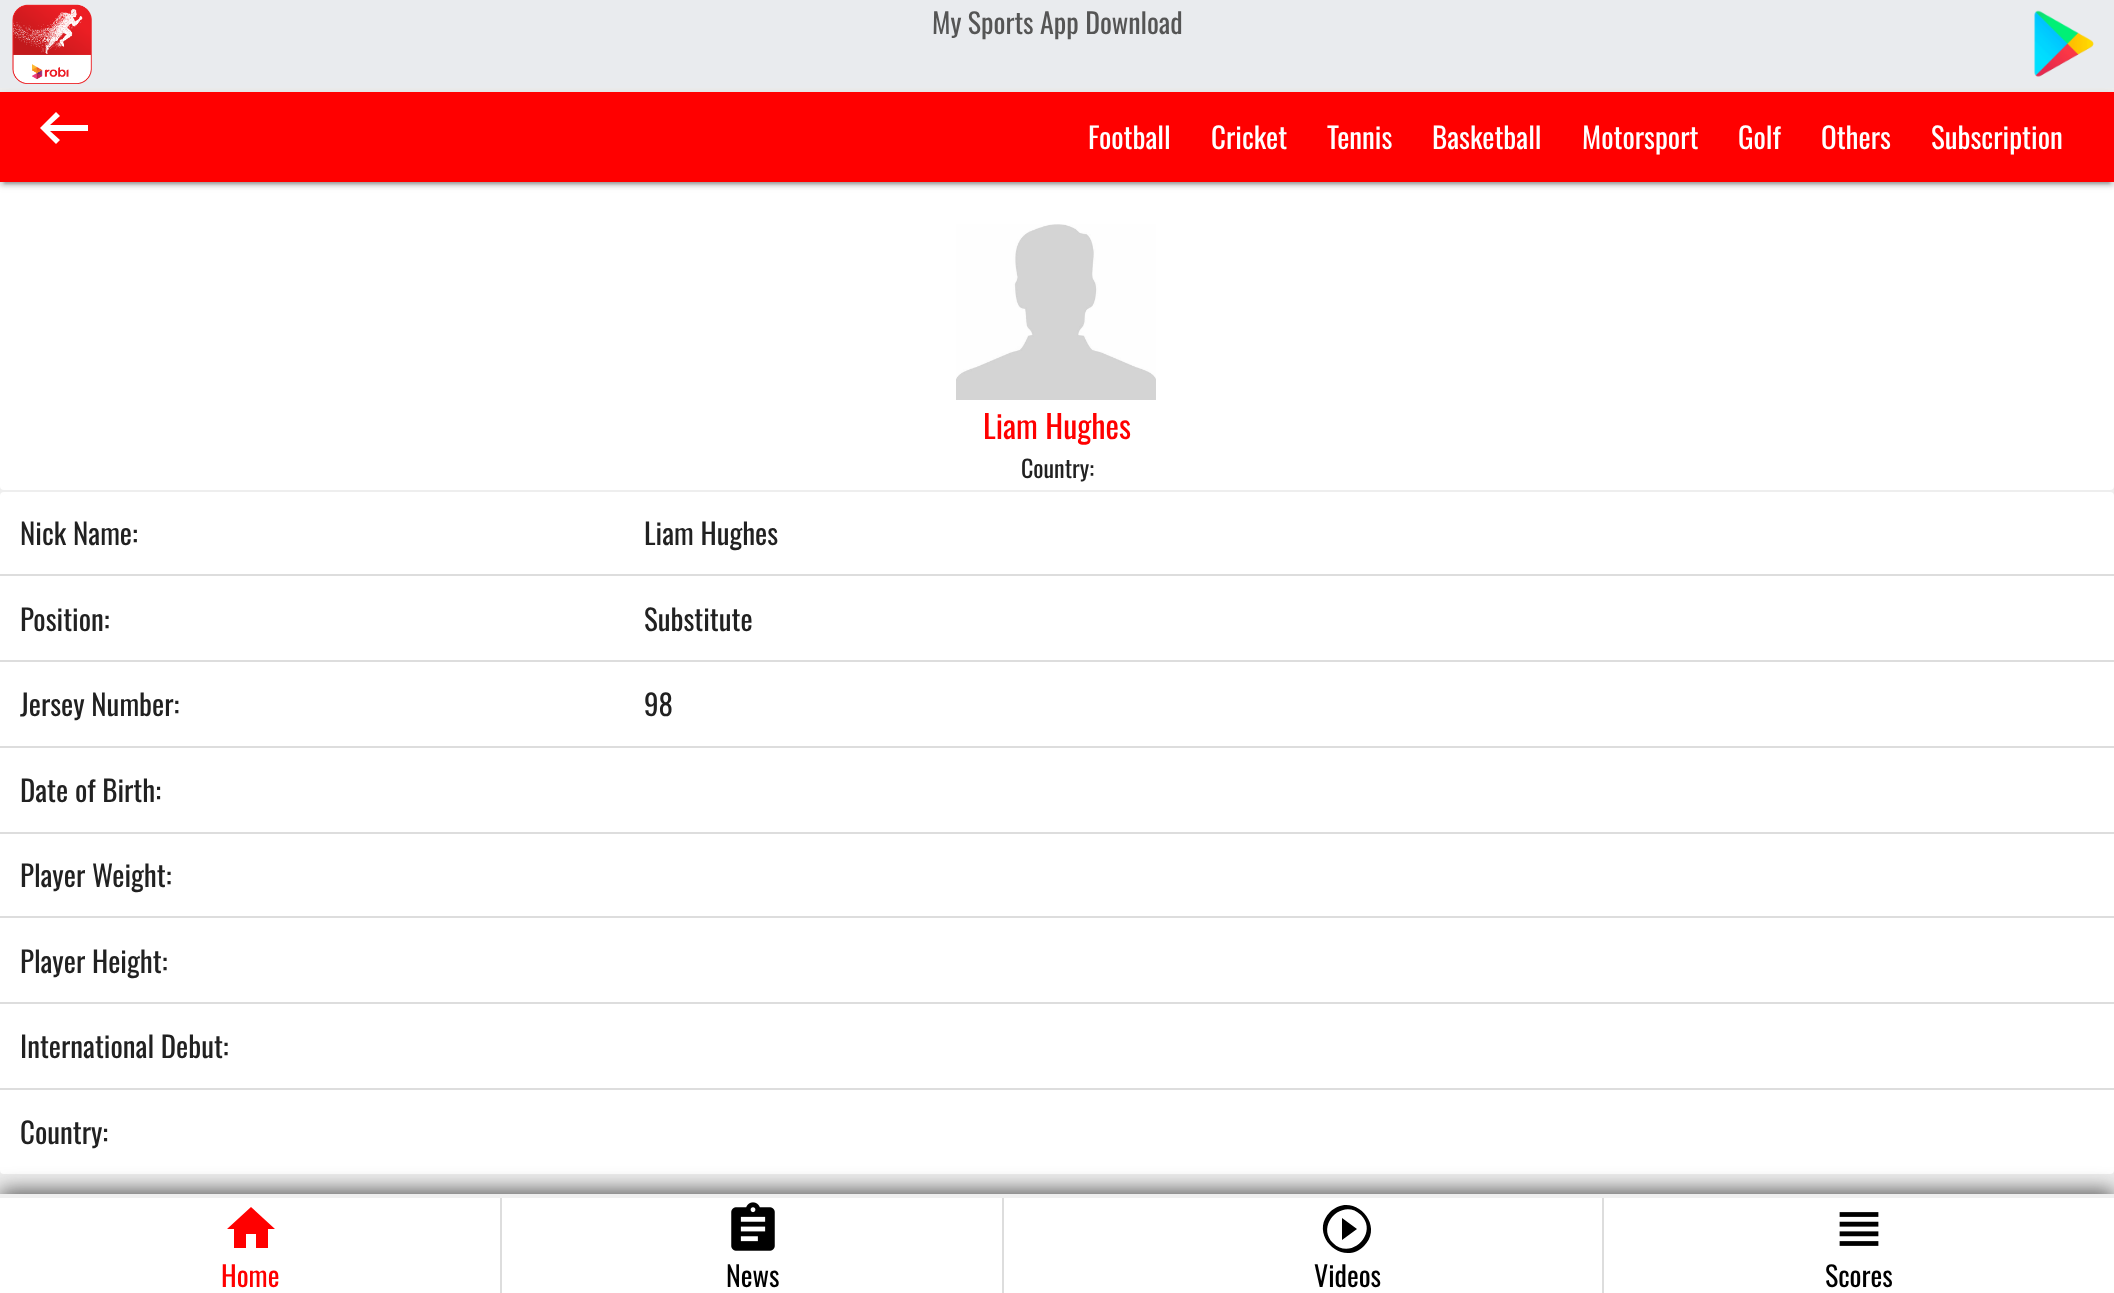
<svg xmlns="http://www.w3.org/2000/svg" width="2114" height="1293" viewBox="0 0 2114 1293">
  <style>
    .t1 { font: 28px Oswald; fill: #555; }
    .t2 { font: 29px Oswald; fill: #fff; }
    .t3 { font: 32px Oswald; fill: #f00; }
    .t4 { font: 24px Oswald; fill: #212121; }
    .t5 { font: 29px Oswald; fill: #212121; }
    .t6 { font: 28px Oswald; fill: #f00; }
    .t7 { font: 28px Oswald; fill: #000; }
  </style>
  <rect width="100%" height="100%" fill="#eee"/>
  <rect x="0" y="180" width="2114" height="310" rx="4" fill="#fff"/>
  <rect x="0" y="94" width="2114" height="90" fill="#0000001f" filter="blur(5px)"/>
  <rect x="0" y="0" width="2114" height="88" fill="#e9ebee"/>
  <image x="12" y="4" width="80" height="80" href="images/1.png"/>
  <text x="932" y="34" class="t1">My Sports App Download</text>
  <image x="2034" y="10" width="60" height="67" href="images/2.png"/>
  <rect x="4" y="102" width="2106" height="82" fill="#00000033" filter="blur(1px)"/>
  <rect x="0" y="96" width="2114" height="90" fill="#00000024" filter="blur(2px)"/>
  <rect x="0" y="92" width="2114" height="90" fill="#f00"/>
  <path d="M88 125V131H50L60 140L56 144L40 128L56 112L60 116L50 125Z" fill="#fff"/>
  <text x="1088" y="149" class="t2">Football</text>
  <text x="1211" y="149" class="t2">Cricket</text>
  <text x="1327" y="149" class="t2">Tennis</text>
  <text x="1432" y="149" class="t2">Basketball</text>
  <text x="1582" y="149" class="t2">Motorsport</text>
  <text x="1738" y="149" class="t2">Golf</text>
  <text x="1821" y="149" class="t2">Others</text>
  <text x="1931" y="149" class="t2">Subscription</text>
  <image x="956" y="224" width="200" height="176" href="images/3.png"/>
  <text x="983" y="439" class="t3">Liam Hughes</text>
  <text x="1021" y="478" class="t4">Country:</text>
  <rect x="0" y="492" width="2114" height="682" rx="4" fill="#fff"/>
  <rect x="0" y="574" width="2114" height="2" fill="#ddd"/>
  <text x="20" y="545" class="t5">Nick Name:</text>
  <text x="644" y="545" class="t5">Liam Hughes</text>
  <rect x="0" y="660" width="2114" height="2" fill="#ddd"/>
  <text x="20" y="631" class="t5">Position:</text>
  <text x="644" y="631" class="t5">Substitute</text>
  <rect x="0" y="746" width="2114" height="2" fill="#ddd"/>
  <text x="20" y="716" class="t5">Jersey Number:</text>
  <text x="644" y="716" class="t5">98</text>
  <rect x="0" y="832" width="2114" height="2" fill="#ddd"/>
  <text x="20" y="802" class="t5">Date of Birth:</text>
  <rect x="0" y="916" width="2114" height="2" fill="#ddd"/>
  <text x="20" y="887" class="t5">Player Weight:</text>
  <rect x="0" y="1002" width="2114" height="2" fill="#ddd"/>
  <text x="20" y="973" class="t5">Player Height:</text>
  <rect x="0" y="1088" width="2114" height="2" fill="#ddd"/>
  <text x="20" y="1058" class="t5">International Debut:</text>
  <text x="20" y="1144" class="t5">Country:</text>
  <rect x="0" y="1190" width="2114" height="100" fill="#323232bf" filter="blur(10px)"/>
  <rect x="0" y="1194" width="2114" height="4" fill="#efefef"/>
  <rect x="0" y="1198" width="2114" height="95" fill="#fff"/>
  <rect x="500" y="1198" width="2" height="95" fill="#ddd"/>
  <path d="M246 1248H234V1229H227L251 1207L275 1229H268V1248H256V1234H246Z" fill="#f00"/>
  <text x="221" y="1287" class="t6">Home</text>
  <rect x="1002" y="1198" width="2" height="95" fill="#ddd"/>
  <image x="731" y="1202" width="44" height="49" href="images/4.png"/>
  <text x="726" y="1287" class="t7">News</text>
  <rect x="1602" y="1198" width="2" height="95" fill="#ddd"/>
  <path d="M1333 1243C1351 1261 1379 1233 1361 1215C1343 1197 1315 1225 1333 1243ZM1330 1212C1352 1190 1386 1224 1364 1246C1342 1268 1308 1234 1330 1212ZM1342 1240V1218L1357 1229Z" fill="#000"/>
  <text x="1314" y="1287" class="t7">Videos</text>
  <image x="1839" y="1212" width="40" height="34" href="images/5.png"/>
  <text x="1825" y="1287" class="t7">Scores</text>
</svg>
